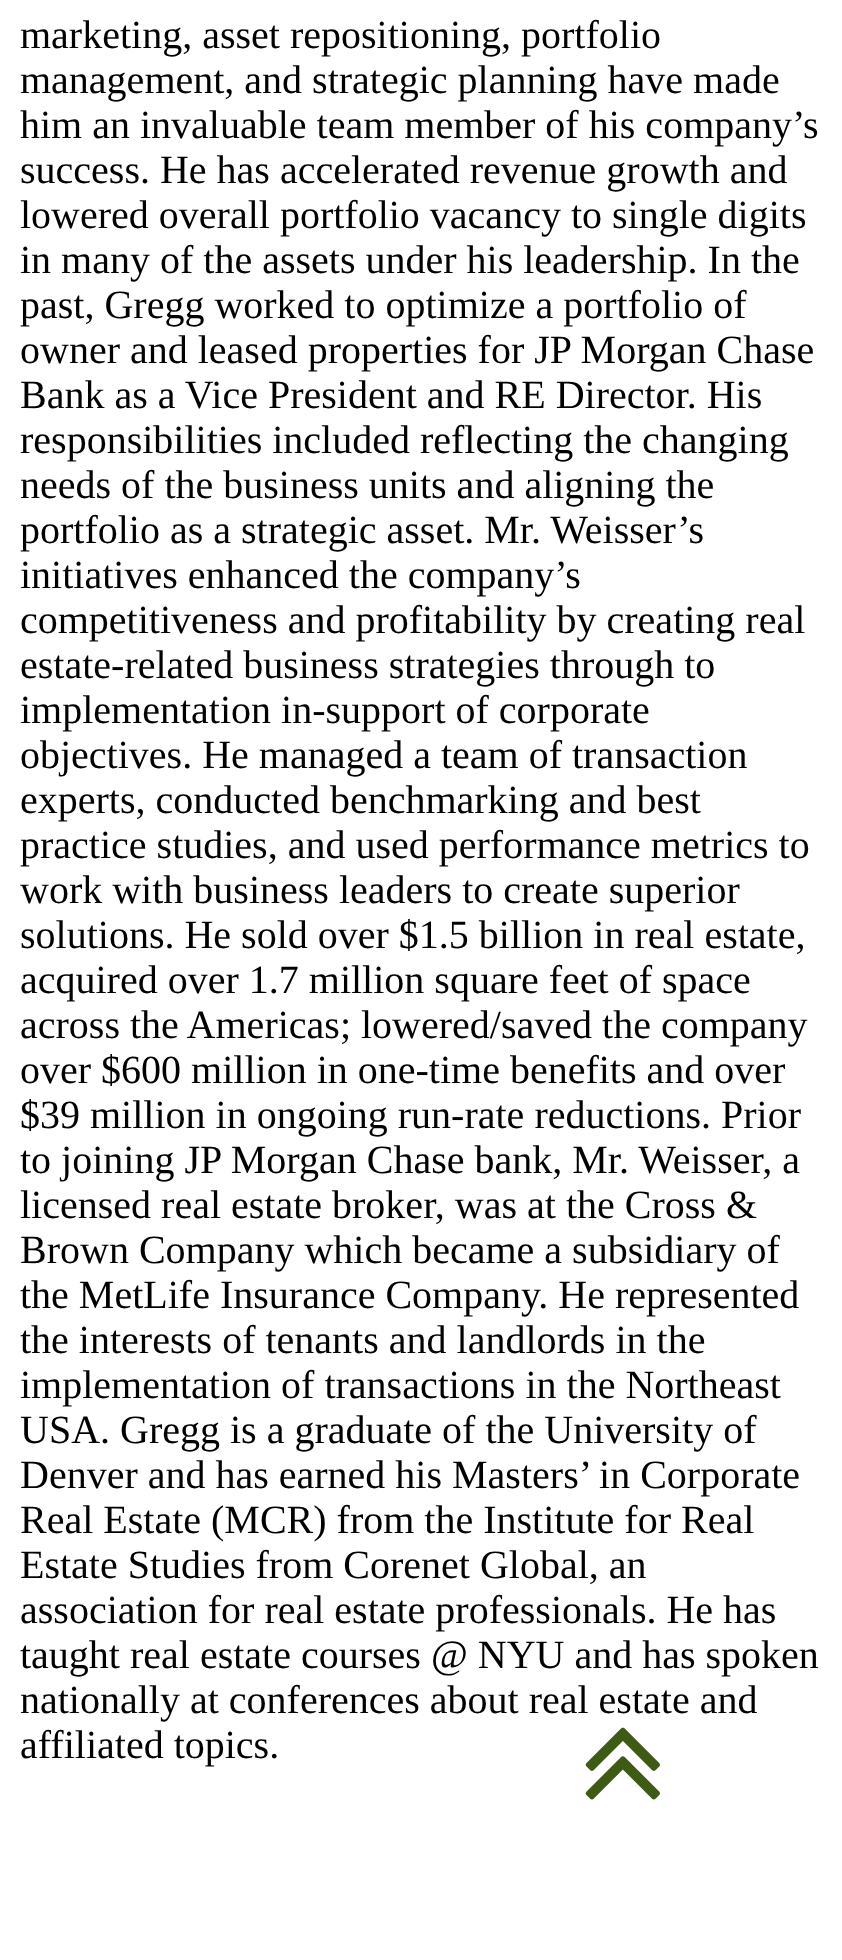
<svg xmlns="http://www.w3.org/2000/svg" width="842" height="1960" viewBox="0 0 842 1960">
  <style>
    .t1 { font: 40px Liberation Serif; fill: #000; }
  </style>
  <rect width="100%" height="100%" fill="#fff"/>
  <text x="20" y="48" class="t1">marketing, asset repositioning, portfolio</text>
  <text x="20" y="93" class="t1">management, and strategic planning have made</text>
  <text x="20" y="138" class="t1">him an invaluable team member of his company’s</text>
  <text x="20" y="183" class="t1">success. He has accelerated revenue growth and</text>
  <text x="20" y="228" class="t1">lowered overall portfolio vacancy to single digits</text>
  <text x="20" y="273" class="t1">in many of the assets under his leadership. In the</text>
  <text x="20" y="318" class="t1">past, Gregg worked to optimize a portfolio of</text>
  <text x="20" y="363" class="t1">owner and leased properties for JP Morgan Chase</text>
  <text x="20" y="408" class="t1">Bank as a Vice President and RE Director. His</text>
  <text x="20" y="453" class="t1">responsibilities included reflecting the changing</text>
  <text x="20" y="498" class="t1">needs of the business units and aligning the</text>
  <text x="20" y="543" class="t1">portfolio as a strategic asset. Mr. Weisser’s</text>
  <text x="20" y="588" class="t1">initiatives enhanced the company’s</text>
  <text x="20" y="633" class="t1">competitiveness and profitability by creating real</text>
  <text x="20" y="678" class="t1">estate-related business strategies through to</text>
  <text x="20" y="723" class="t1">implementation in-support of corporate</text>
  <text x="20" y="768" class="t1">objectives. He managed a team of transaction</text>
  <text x="20" y="813" class="t1">experts, conducted benchmarking and best</text>
  <text x="20" y="858" class="t1">practice studies, and used performance metrics to</text>
  <text x="20" y="903" class="t1">work with business leaders to create superior</text>
  <text x="20" y="948" class="t1">solutions. He sold over $1.5 billion in real estate,</text>
  <text x="20" y="993" class="t1">acquired over 1.7 million square feet of space</text>
  <text x="20" y="1038" class="t1">across the Americas; lowered/saved the company</text>
  <text x="20" y="1083" class="t1">over $600 million in one-time benefits and over</text>
  <text x="20" y="1128" class="t1">$39 million in ongoing run-rate reductions. Prior</text>
  <text x="20" y="1173" class="t1">to joining JP Morgan Chase bank, Mr. Weisser, a</text>
  <text x="20" y="1218" class="t1">licensed real estate broker, was at the Cross &amp;</text>
  <text x="20" y="1263" class="t1">Brown Company which became a subsidiary of</text>
  <text x="20" y="1308" class="t1">the MetLife Insurance Company. He represented</text>
  <text x="20" y="1353" class="t1">the interests of tenants and landlords in the</text>
  <text x="20" y="1398" class="t1">implementation of transactions in the Northeast</text>
  <text x="20" y="1443" class="t1">USA. Gregg is a graduate of the University of</text>
  <text x="20" y="1488" class="t1">Denver and has earned his Masters’ in Corporate</text>
  <text x="20" y="1533" class="t1">Real Estate (MCR) from the Institute for Real</text>
  <text x="20" y="1578" class="t1">Estate Studies from Corenet Global, an</text>
  <text x="20" y="1623" class="t1">association for real estate professionals. He has</text>
  <text x="20" y="1668" class="t1">taught real estate courses @ NYU and has spoken</text>
  <text x="20" y="1713" class="t1">nationally at conferences about real estate and</text>
  <text x="20" y="1758" class="t1">affiliated topics.</text>
  <image x="585" y="1727" width="75" height="73" href="images/1.png"/>
</svg>
